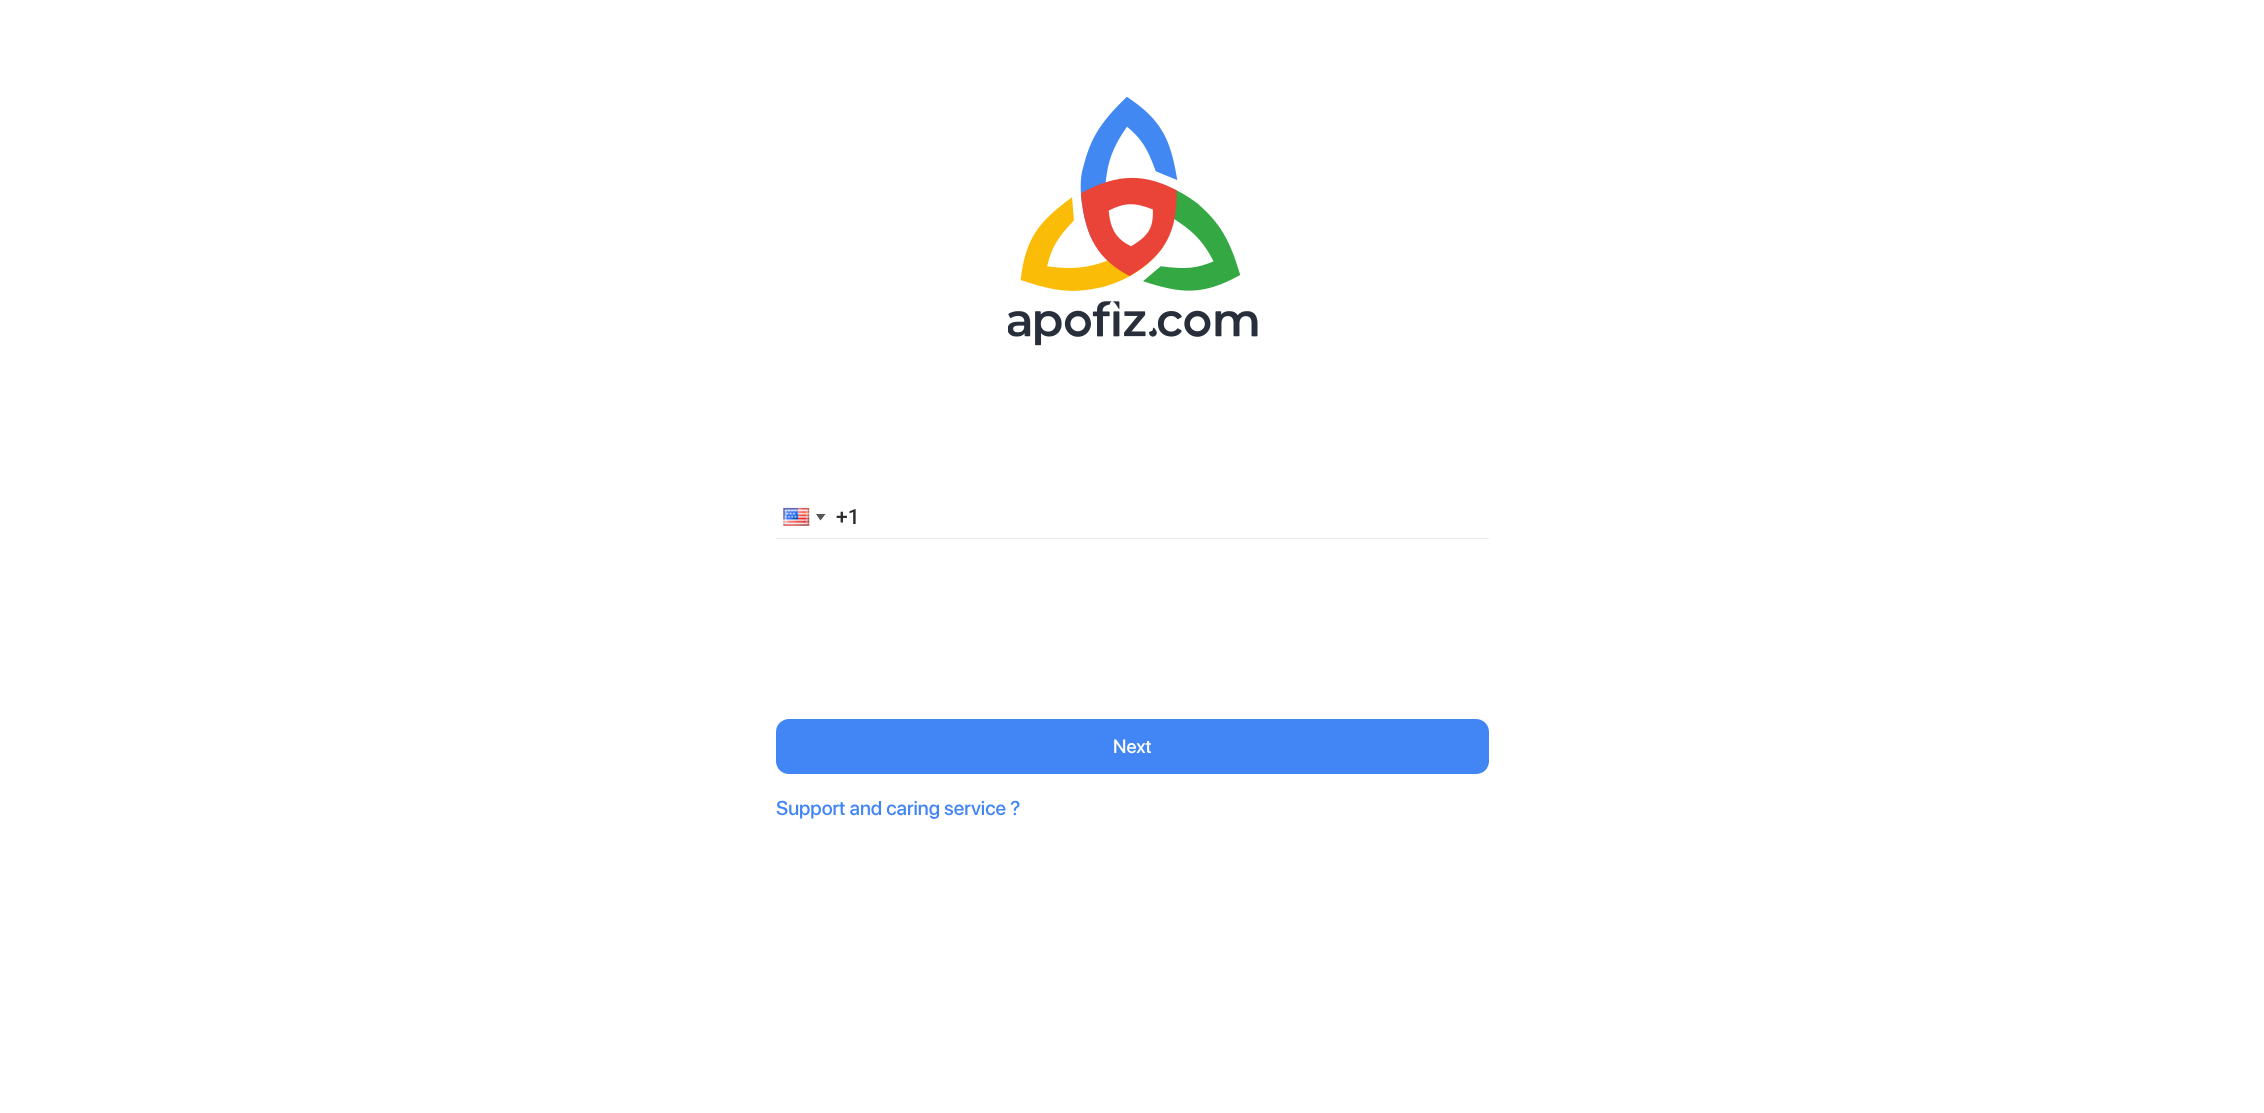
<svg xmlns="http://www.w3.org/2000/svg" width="2264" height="1113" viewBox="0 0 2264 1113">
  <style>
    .t1 { font: 500 21px Roboto; fill: #2c2d2e; }
    .t2 { font: 500 19px SF Pro Display; fill: #fff; }
    .t3 { font: 500 20px SF Pro Display; fill: #4285f4; }
  </style>
  <rect width="100%" height="100%" fill="#fff"/>
  <image x="1008" y="96" width="250" height="250" href="images/1.png"/>
  <image x="783" y="507" width="27" height="19" href="images/2.png"/>
  <path d="M816 514H825.5L820.5 520.5Z" fill="#555"/>
  <rect x="776" y="538" width="713" height="1" fill="#e8eaed"/>
  <text x="836" y="524" class="t1">+1</text>
  <rect x="776" y="719" width="713" height="55" rx="13" fill="#4285f4"/>
  <text x="1113" y="753" class="t2">Next</text>
  <text x="776" y="815" class="t3">Support and caring service ?</text>
</svg>
